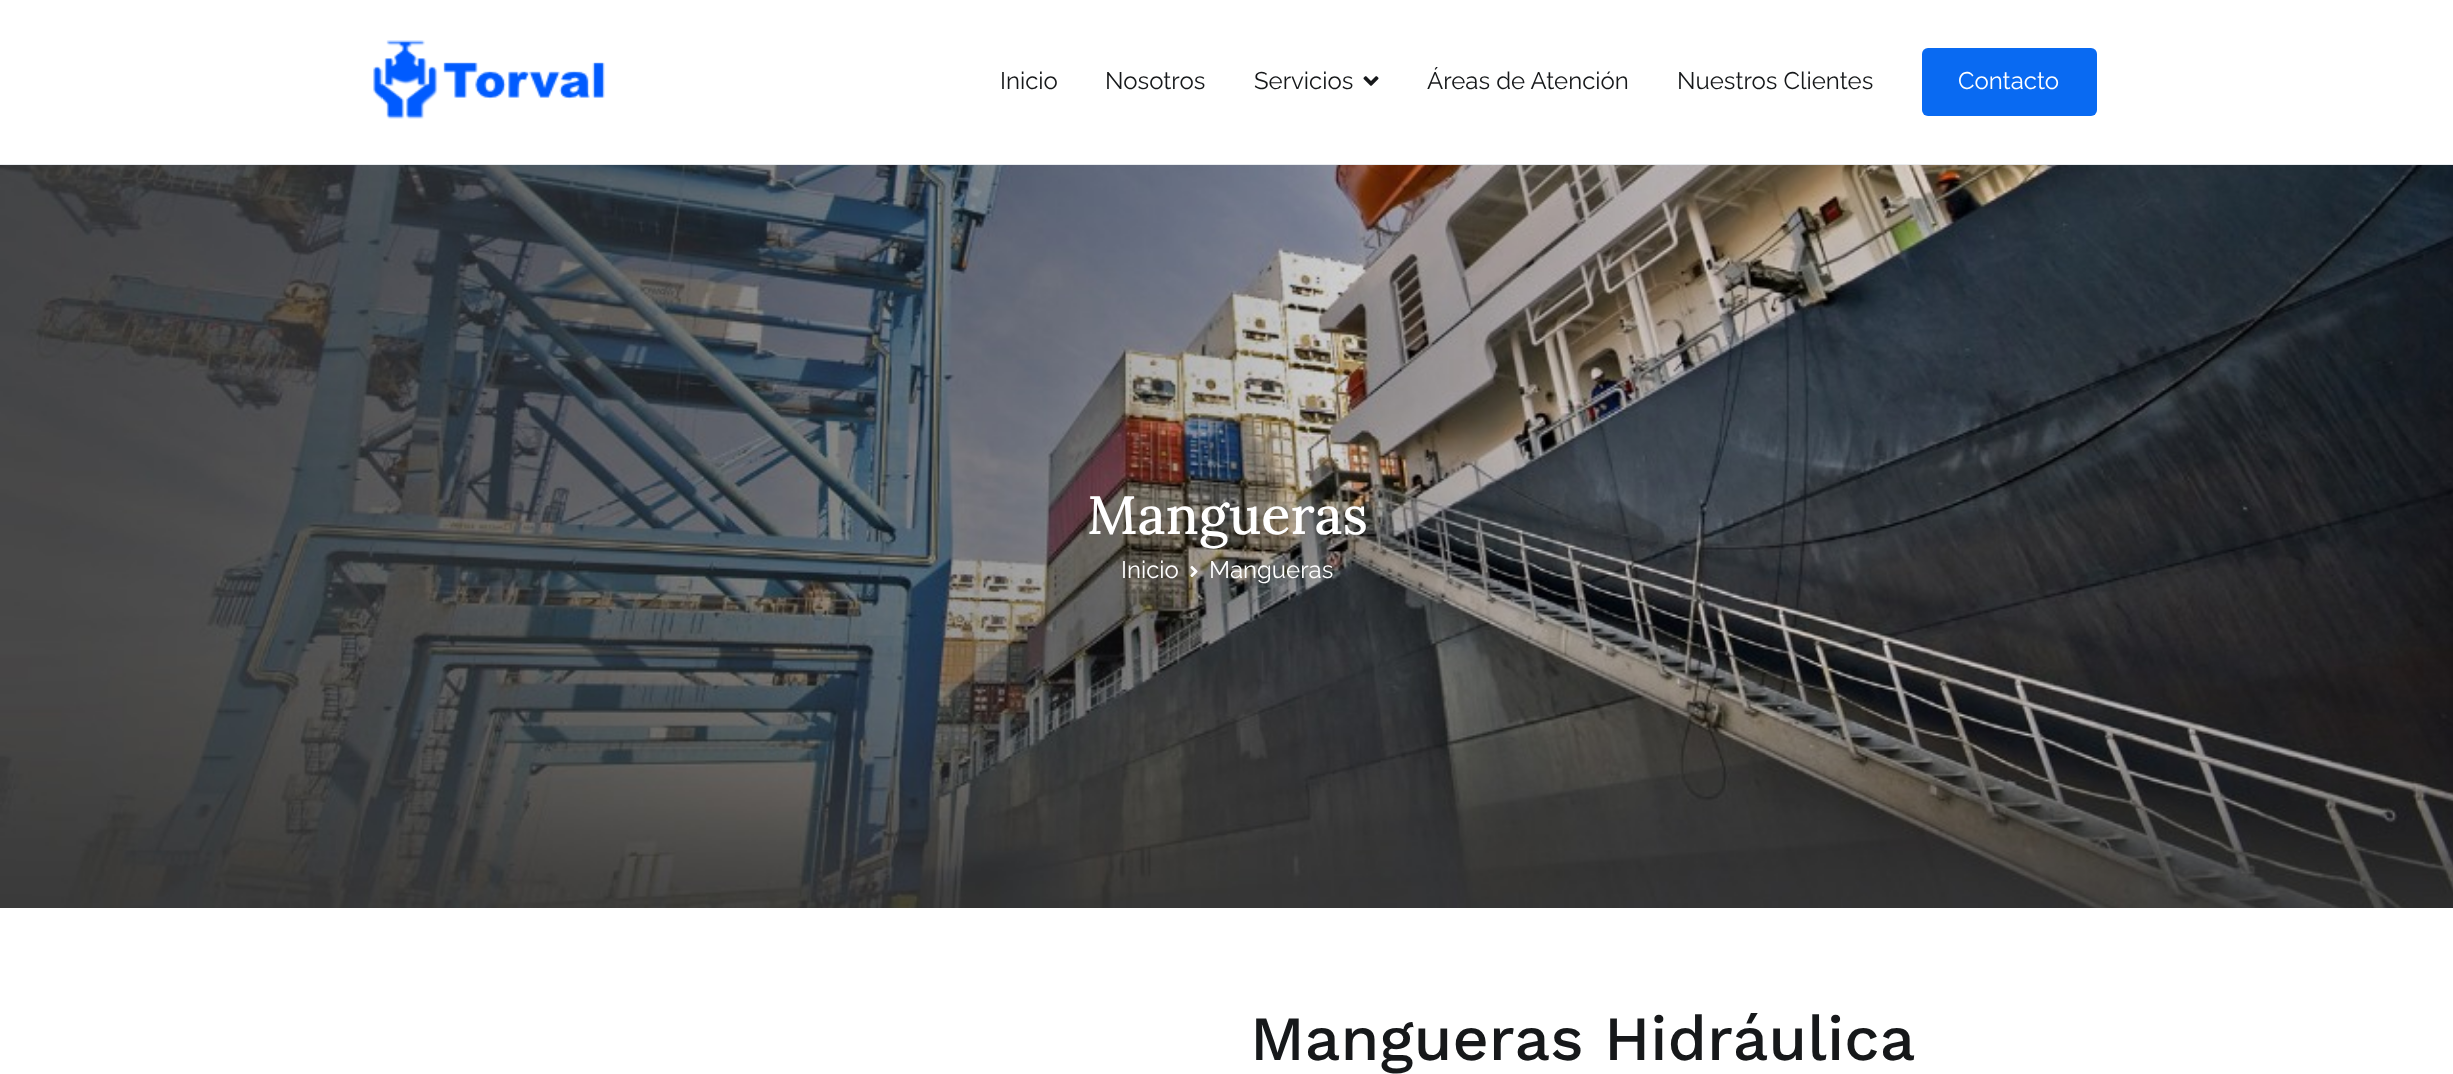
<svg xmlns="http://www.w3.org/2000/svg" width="2453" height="1074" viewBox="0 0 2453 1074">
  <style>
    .t1 { font: 100 24px Raleway; fill: #16181a; }
    .t2 { font: 100 24px Raleway; fill: #fff; }
    .t3 { font: 500 54px Lora; fill: #fff; }
    .t4 { font: 500 63px Work Sans; fill: #16181a; }
  </style>
  <rect width="100%" height="100%" fill="#fff"/>
  <rect x="0" y="164" width="2453" height="1" fill="#e9ecef"/>
  <image x="373" y="40" width="232" height="79" href="images/1.png"/>
  <text x="1000" y="89" class="t1">Inicio</text>
  <text x="1105" y="89" class="t1">Nosotros</text>
  <text x="1254" y="89" class="t1">Servicios</text>
  <image x="1363" y="76" width="16" height="10" href="images/2.png"/>
  <text x="1427" y="89" class="t1">Áreas de Atención</text>
  <text x="1677" y="89" class="t1">Nuestros Clientes</text>
  <rect x="1922" y="48" width="175" height="68" rx="6" fill="#096af2"/>
  <text x="1958" y="89" class="t2">Contacto</text>
  <image x="0" y="165" width="2453" height="743" href="images/3.png"/>
  <text x="1087" y="534" class="t3">Mangueras</text>
  <text x="1121" y="578" class="t2">Inicio</text>
  <image x="1190" y="566" width="8" height="11" href="images/4.png"/>
  <text x="1209" y="578" class="t2">Mangueras</text>
  <text x="1250" y="1060" class="t4">Mangueras Hidráulica</text>
</svg>
